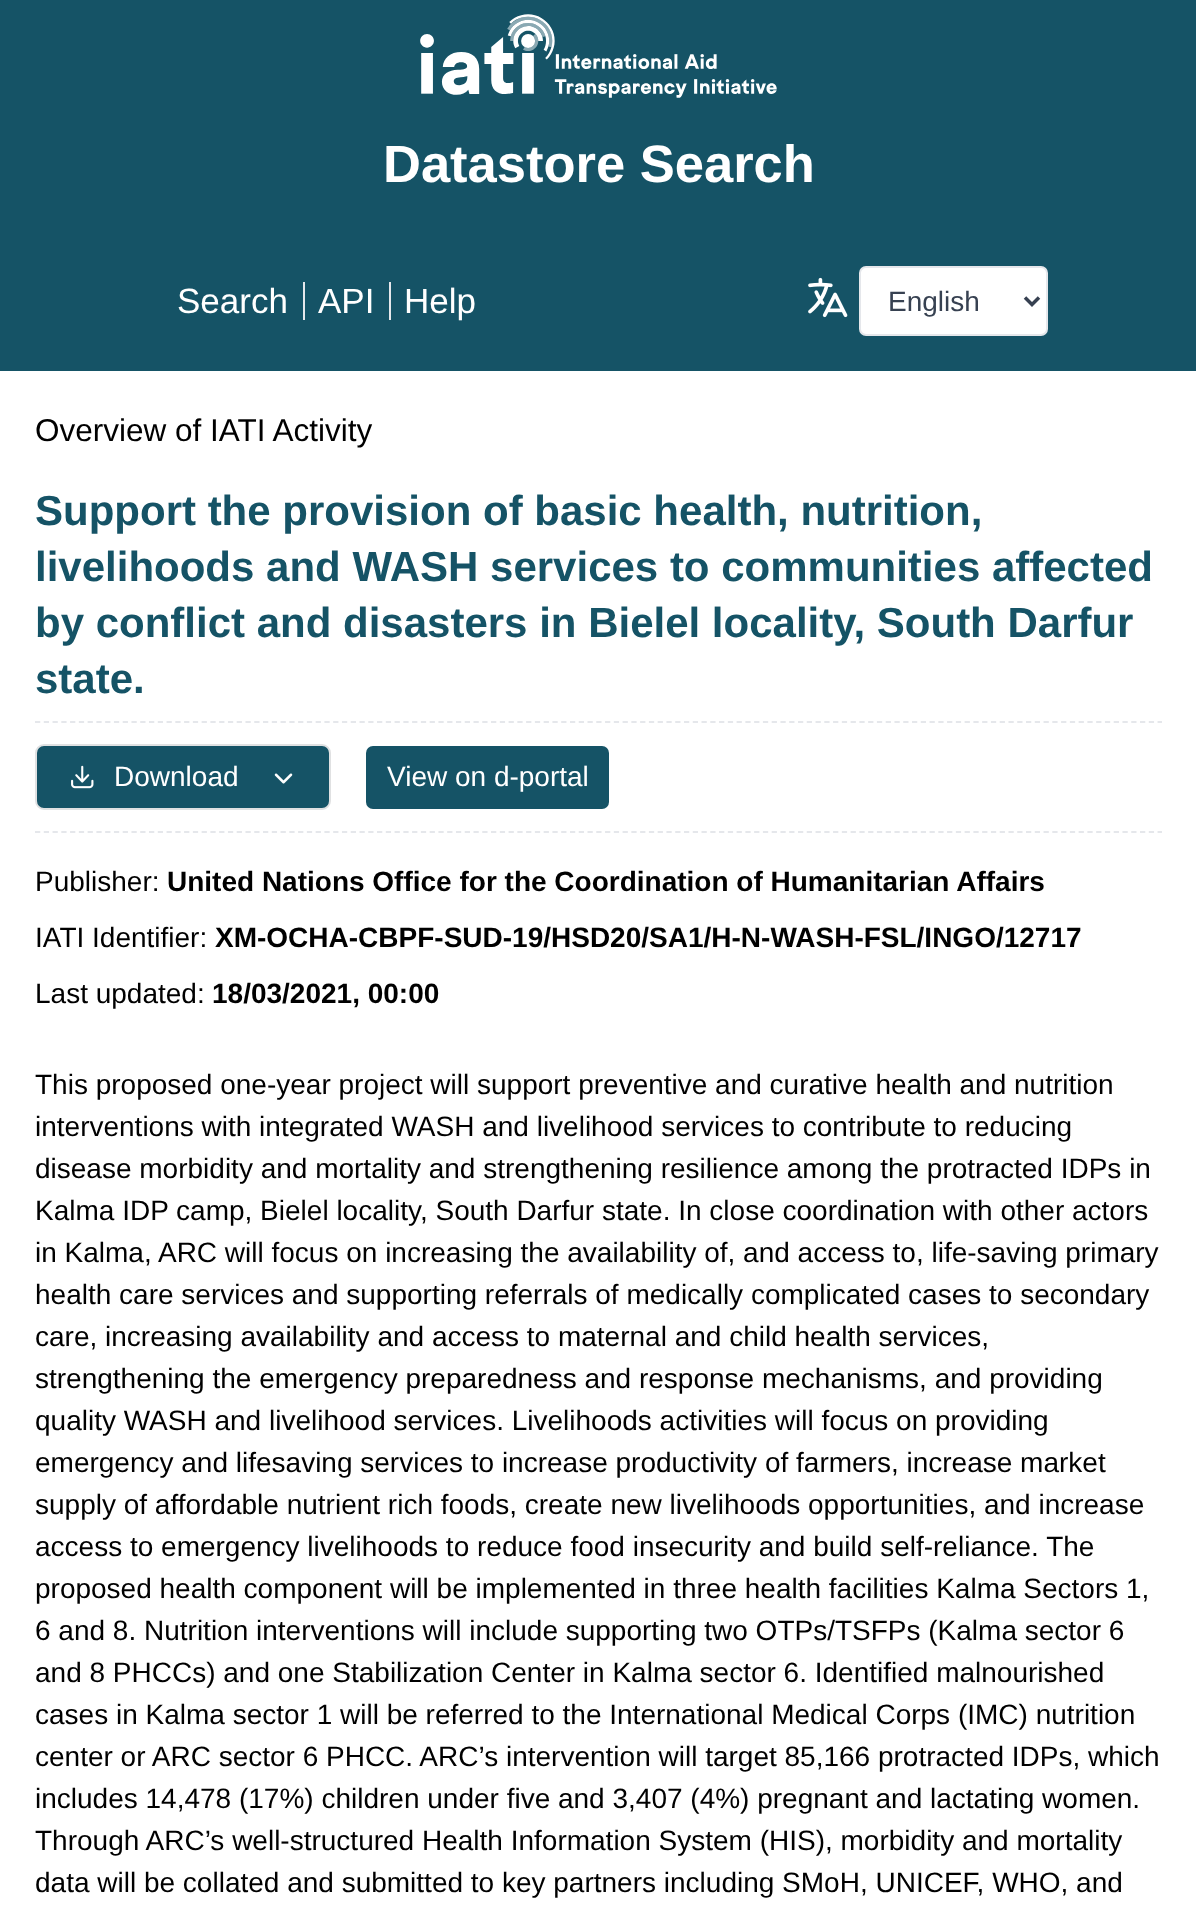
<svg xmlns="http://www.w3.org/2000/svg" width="1196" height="1908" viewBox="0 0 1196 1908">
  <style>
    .t1 { font: bold 52.5px Liberation Sans; fill: #fff; }
    .t2 { font: 35px Liberation Sans; fill: #fff; }
    .t3 { font: 28px Liberation Sans; fill: #374151; }
    .t4 { font: 31.5px Liberation Sans; fill: #000; }
    .t5 { font: bold 42px Liberation Sans; fill: #155366; }
    .t6 { font: 28px Liberation Sans; fill: #fff; }
    .t7 { font: 28px Liberation Sans; fill: #000; }
    .t8 { font: bold 28px Liberation Sans; fill: #000; }
  </style>
  <rect width="100%" height="100%" fill="#fff"/>
  <rect x="0" y="0" width="1196" height="371" fill="#155366"/>
  <image x="420" y="14" width="357" height="84" href="images/1.png"/>
  <text x="383" y="182" class="t1">Datastore Search</text>
  <text x="177" y="313" class="t2">Search</text>
  <text x="318" y="313" class="t2">API</text>
  <rect x="303" y="282" width="2" height="38" fill="#e5e7eb"/>
  <text x="404" y="313" class="t2">Help</text>
  <rect x="389" y="282" width="2" height="38" fill="#e5e7eb"/>
  <image x="808" y="277" width="40" height="41" href="images/2.png"/>
  <rect x="860" y="267" width="187" height="68" rx="6" fill="#fff" stroke="#e5e7eb" stroke-width="2"/>
  <path d="M1025 297.5L1032 304.5L1039 297.5" fill="none" stroke="#374151" stroke-width="3.5"/>
  <text x="888" y="311" class="t3">English</text>
  <text x="35" y="441" class="t4">Overview of IATI Activity</text>
  <path d="M35 722H1162" fill="none" stroke="#e5e7eb" stroke-width="1.8" stroke-dasharray="5.25 3.52"/>
  <text x="35" y="525" class="t5">Support the provision of basic health, nutrition,</text>
  <text x="35" y="581" class="t5">livelihoods and WASH services to communities affected</text>
  <text x="35" y="637" class="t5">by conflict and disasters in Bielel locality, South Darfur</text>
  <text x="35" y="693" class="t5">state.</text>
  <path d="M35 832H1162" fill="none" stroke="#e5e7eb" stroke-width="1.8" stroke-dasharray="5.25 3.52"/>
  <rect x="36" y="745" width="294" height="64" rx="8" fill="#155366" stroke="#e0e1e2" stroke-width="2"/>
  <image x="71" y="765" width="23" height="24" href="images/3.png"/>
  <text x="114" y="786" class="t6">Download</text>
  <image x="274" y="773" width="19" height="11" href="images/4.png"/>
  <rect x="366" y="746" width="243" height="63" rx="7" fill="#155366"/>
  <text x="387" y="786" class="t6">View on d-portal</text>
  <text x="35" y="891" class="t7">Publisher:</text>
  <text x="167" y="891" class="t8">United Nations Office for the Coordination of Humanitarian Affairs</text>
  <text x="35" y="947" class="t7">IATI Identifier:</text>
  <text x="215" y="947" class="t8">XM-OCHA-CBPF-SUD-19/HSD20/SA1/H-N-WASH-FSL/INGO/12717</text>
  <text x="35" y="1003" class="t7">Last updated:</text>
  <text x="212" y="1003" class="t8">18/03/2021, 00:00</text>
  <text x="35" y="1094" class="t7">This proposed one-year project will support preventive and curative health and nutrition</text>
  <text x="35" y="1136" class="t7">interventions with integrated WASH and livelihood services to contribute to reducing</text>
  <text x="35" y="1178" class="t7">disease morbidity and mortality and strengthening resilience among the protracted IDPs in</text>
  <text x="35" y="1220" class="t7">Kalma IDP camp, Bielel locality, South Darfur state. In close coordination with other actors</text>
  <text x="35" y="1262" class="t7">in Kalma, ARC will focus on increasing the availability of, and access to, life-saving primary</text>
  <text x="35" y="1304" class="t7">health care services and supporting referrals of medically complicated cases to secondary</text>
  <text x="35" y="1346" class="t7">care, increasing availability and access to maternal and child health services,</text>
  <text x="35" y="1388" class="t7">strengthening the emergency preparedness and response mechanisms, and providing</text>
  <text x="35" y="1430" class="t7">quality WASH and livelihood services. Livelihoods activities will focus on providing</text>
  <text x="35" y="1472" class="t7">emergency and lifesaving services to increase productivity of farmers, increase market</text>
  <text x="35" y="1514" class="t7">supply of affordable nutrient rich foods, create new livelihoods opportunities, and increase</text>
  <text x="35" y="1556" class="t7">access to emergency livelihoods to reduce food insecurity and build self-reliance. The</text>
  <text x="35" y="1598" class="t7">proposed health component will be implemented in three health facilities Kalma Sectors 1,</text>
  <text x="35" y="1640" class="t7">6 and 8. Nutrition interventions will include supporting two OTPs/TSFPs (Kalma sector 6</text>
  <text x="35" y="1682" class="t7">and 8 PHCCs) and one Stabilization Center in Kalma sector 6. Identified malnourished</text>
  <text x="35" y="1724" class="t7">cases in Kalma sector 1 will be referred to the International Medical Corps (IMC) nutrition</text>
  <text x="35" y="1766" class="t7">center or ARC sector 6 PHCC. ARC’s intervention will target 85,166 protracted IDPs, which</text>
  <text x="35" y="1808" class="t7">includes 14,478 (17%) children under five and 3,407 (4%) pregnant and lactating women.</text>
  <text x="35" y="1850" class="t7">Through ARC’s well-structured Health Information System (HIS), morbidity and mortality</text>
  <text x="35" y="1892" class="t7">data will be collated and submitted to key partners including SMoH, UNICEF, WHO, and</text>
</svg>
